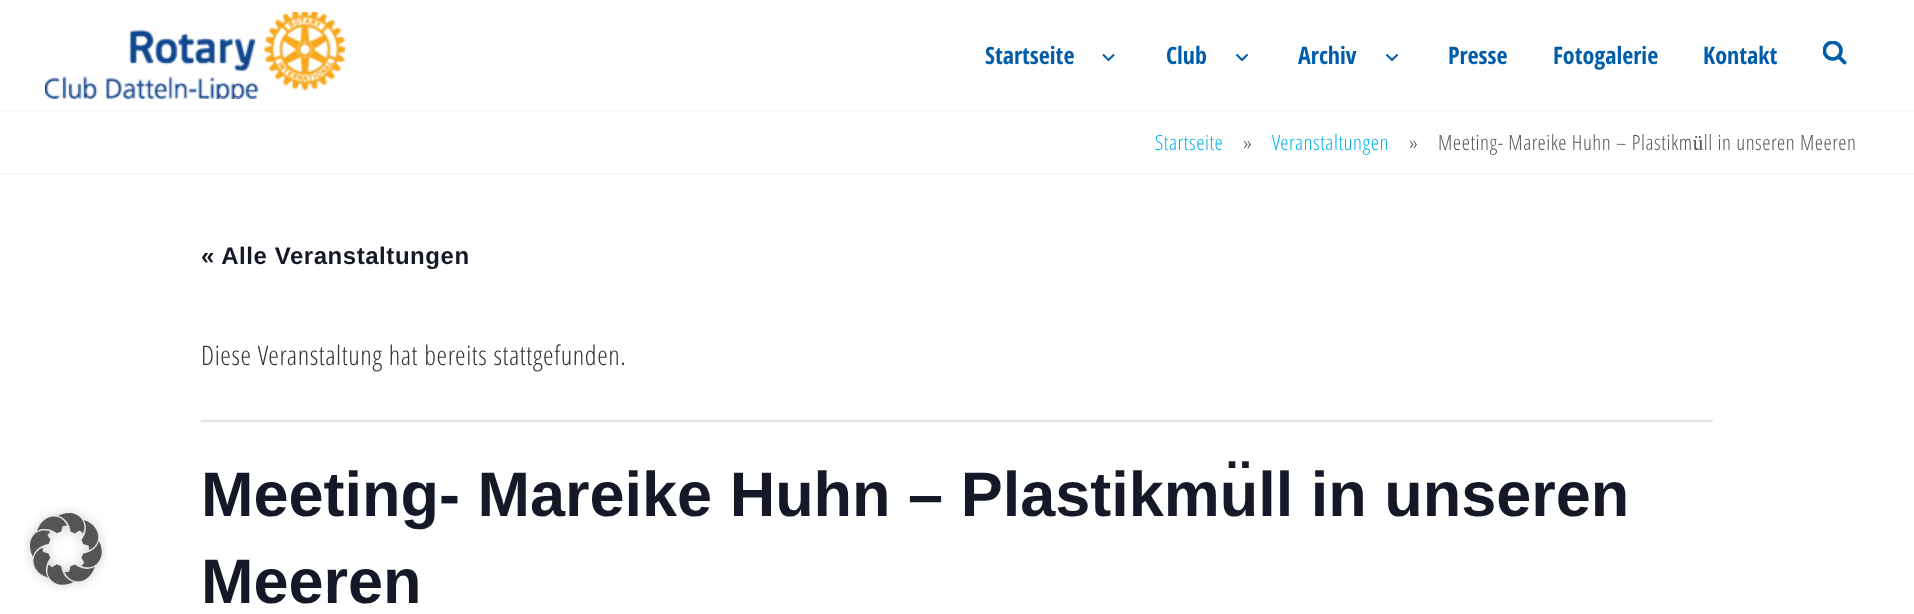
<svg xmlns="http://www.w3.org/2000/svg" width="1914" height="614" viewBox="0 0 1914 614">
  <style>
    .t1 { font: bold 24px Open Sans Condensed; fill: #005daa; }
    .t2 { font: 300 21px Open Sans; letter-spacing: 0.55px; fill: #01b4e7; }
    .t3 { font: 300 21px Open Sans; letter-spacing: 0.55px; fill: #555; }
    .t4 { font: bold 24px Liberation Sans; letter-spacing: 0.55px; fill: #141827; }
    .t5 { font: 300 27px Open Sans; letter-spacing: 0.55px; fill: #333; }
    .t6 { font: bold 63px Liberation Sans; fill: #141827; }
  </style>
  <rect width="100%" height="100%" fill="#fff"/>
  <image x="45" y="12" width="300" height="87" href="images/1.png"/>
  <text x="985" y="64" class="t1">Startseite</text>
  <image x="1102" y="54" width="13" height="7" href="images/2.png"/>
  <text x="1166" y="64" class="t1">Club</text>
  <image x="1236" y="54" width="12" height="7" href="images/3.png"/>
  <text x="1298" y="64" class="t1">Archiv</text>
  <image x="1386" y="54" width="12" height="7" href="images/3.png"/>
  <text x="1448" y="64" class="t1">Presse</text>
  <text x="1553" y="64" class="t1">Fotogalerie</text>
  <text x="1703" y="64" class="t1">Kontakt</text>
  <image x="1823" y="41" width="24" height="24" href="images/4.png"/>
  <rect x="0" y="110" width="1914" height="2" fill="#f7f7f7"/>
  <rect x="0" y="173" width="1914" height="2" fill="#f7f7f7"/>
  <text x="1155" y="150" class="t2">Startseite</text>
  <text x="1243" y="150" class="t3">»</text>
  <text x="1272" y="150" class="t2">Veranstaltungen</text>
  <text x="1409" y="150" class="t3">»</text>
  <text x="1438" y="150" word-spacing="0.25" class="t3">Meeting- Mareike Huhn – Plastikmüll in unseren Meeren</text>
  <image x="24" y="507" width="84" height="84" href="images/5.png"/>
  <text x="201" y="264" class="t4">« Alle Veranstaltungen</text>
  <rect x="201" y="420" width="1512" height="2" fill="#e4e4e4"/>
  <text x="201" y="365" word-spacing="0.5" class="t5">Diese Veranstaltung hat bereits stattgefunden.</text>
  <text x="201" y="516" class="t6">Meeting- Mareike Huhn – Plastikmüll in unseren</text>
  <text x="201" y="603" class="t6">Meeren</text>
</svg>
